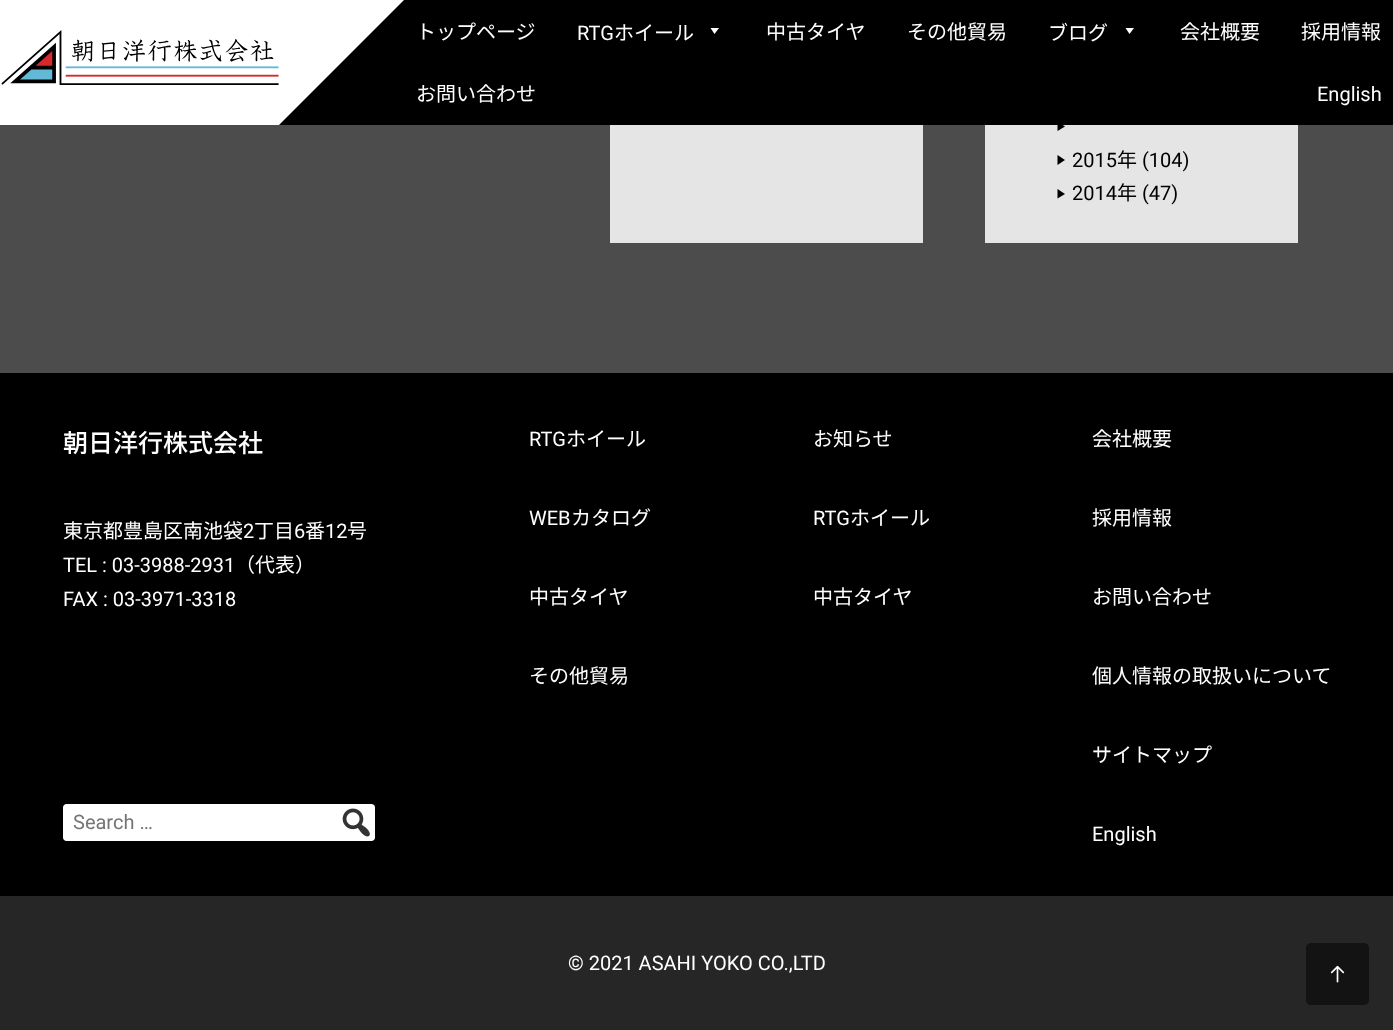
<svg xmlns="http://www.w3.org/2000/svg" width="1393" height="1030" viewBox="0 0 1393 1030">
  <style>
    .t1 { font: 20px Noto Sans JP; fill: #fff; }
    .t2 { font: 20px Roboto; fill: #fff; }
    .t3 { font: 20px Roboto; fill: #000; }
    .t4 { font: 20px Noto Sans JP; fill: #000; }
    .t5 { font: 500 25px Noto Sans JP; fill: #fff; }
    .t6 { font: 20px Roboto; fill: #757575; }
  </style>
  <rect width="100%" height="100%" fill="#4c4c4c"/>
  <rect x="985" y="125" width="313" height="118" fill="#e5e5e5"/>
  <path d="M1057.5 121.5L1065 126.5L1057.5 131Z" fill="#000"/>
  <rect x="279" y="0" width="1114" height="125" fill="#000"/>
  <rect x="0" y="0" width="279" height="125" fill="#fff"/>
  <image x="1" y="30" width="278" height="55" href="images/1.png"/>
  <path d="M279 0H404L279 125Z" fill="#fff"/>
  <text x="416" y="39" class="t1">トップページ</text>
  <text x="577" y="40" class="t2">RTG</text>
  <text x="614" y="40" class="t1">ホイール</text>
  <path d="M719 28L714.5 34L710.5 28Z" fill="#fff"/>
  <text x="766" y="39" class="t1">中古タイヤ</text>
  <text x="907" y="39" class="t1">その他貿易</text>
  <text x="1048" y="40" class="t1">ブログ</text>
  <path d="M1134 28L1129.5 34L1125.5 28Z" fill="#fff"/>
  <text x="1180" y="39" class="t1">会社概要</text>
  <text x="1301" y="39" class="t1">採用情報</text>
  <text x="416" y="101" class="t1">お問い合わせ</text>
  <text x="1317" y="101" class="t2">English</text>
  <rect x="610" y="125" width="313" height="118" fill="#e5e5e5"/>
  <path d="M1057.5 155L1065 160L1057.5 165Z" fill="#000"/>
  <text x="1072" y="167" class="t3">2015</text>
  <text x="1117" y="167" class="t4">年</text>
  <text x="1142" y="167" class="t3">(104)</text>
  <path d="M1057.5 189L1065 194L1057.5 198.5Z" fill="#000"/>
  <text x="1072" y="200" class="t3">2014</text>
  <text x="1117" y="200" class="t4">年</text>
  <text x="1142" y="200" class="t3">(47)</text>
  <rect x="0" y="373" width="1393" height="523" fill="#000"/>
  <text x="63" y="452" class="t5">朝日洋行株式会社</text>
  <text x="63" y="538" class="t1">東京都豊島区南池袋</text>
  <text x="243" y="538" class="t2">2</text>
  <text x="254" y="538" class="t1">丁目</text>
  <text x="294" y="538" class="t2">6</text>
  <text x="305" y="538" class="t1">番</text>
  <text x="325" y="538" class="t2">12</text>
  <text x="347" y="538" class="t1">号</text>
  <text x="63" y="572" class="t2">TEL : 03-3988-2931</text>
  <text x="235" y="572" class="t1">（代表）</text>
  <text x="63" y="606" class="t2">FAX : 03-3971-3318</text>
  <text x="529" y="446" class="t2">RTG</text>
  <text x="566" y="446" class="t1">ホイール</text>
  <text x="529" y="525" class="t2">WEB</text>
  <text x="571" y="525" class="t1">カタログ</text>
  <text x="529" y="604" class="t1">中古タイヤ</text>
  <text x="529" y="683" class="t1">その他貿易</text>
  <text x="813" y="446" class="t1">お知らせ</text>
  <text x="813" y="525" class="t2">RTG</text>
  <text x="850" y="525" class="t1">ホイール</text>
  <text x="813" y="604" class="t1">中古タイヤ</text>
  <text x="1092" y="446" class="t1">会社概要</text>
  <text x="1092" y="525" class="t1">採用情報</text>
  <text x="1092" y="604" class="t1">お問い合わせ</text>
  <text x="1092" y="683" class="t1">個人情報の取扱いについて</text>
  <text x="1092" y="762" class="t1">サイトマップ</text>
  <text x="1092" y="841" class="t2">English</text>
  <rect x="63" y="804" width="312" height="37" rx="5" fill="#fff"/>
  <rect x="63" y="804" width="273" height="37" rx="4" fill="#fff"/>
  <text x="73" y="829" class="t6">Search …</text>
  <rect x="338" y="804" width="37" height="37" rx="4" fill="#fff"/>
  <image x="342" y="808" width="28" height="29" href="images/2.png"/>
  <rect x="0" y="896" width="1393" height="134" fill="#262626"/>
  <text x="568" y="970" class="t2">© 2021 ASAHI YOKO CO.,LTD</text>
  <rect x="1306" y="943" width="63" height="62" rx="5" fill="#131313"/>
  <image x="1330" y="965" width="15" height="18" href="images/3.png"/>
</svg>
